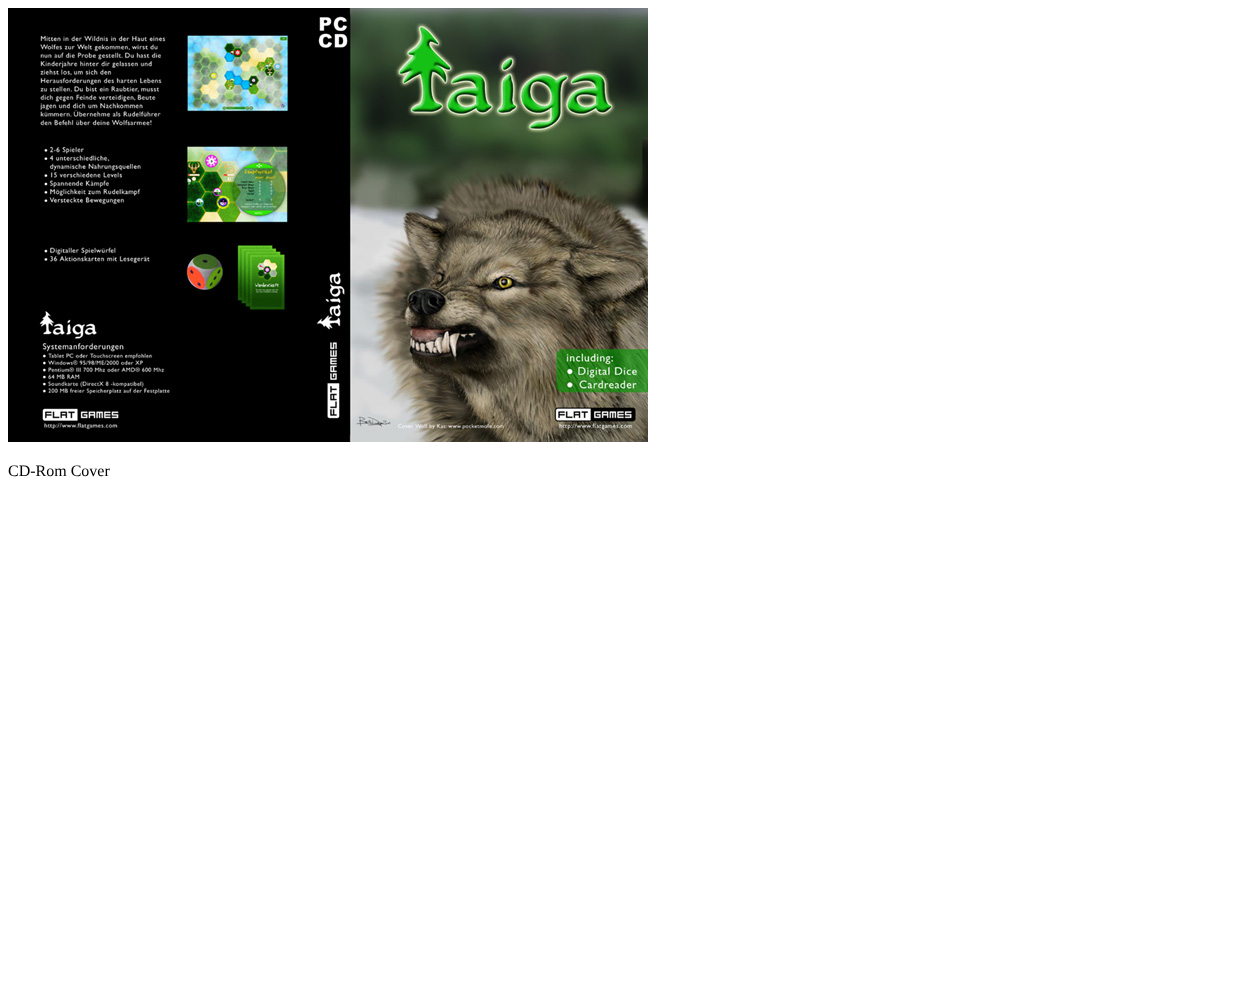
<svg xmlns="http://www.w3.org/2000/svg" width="1254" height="993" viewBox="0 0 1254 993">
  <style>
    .t1 { font: 16px Liberation Serif; fill: #000; }
  </style>
  <rect width="100%" height="100%" fill="#fff"/>
  <image x="8" y="8" width="640" height="434" href="images/1.png"/>
  <text x="8" y="476" class="t1">CD-Rom Cover</text>
</svg>
